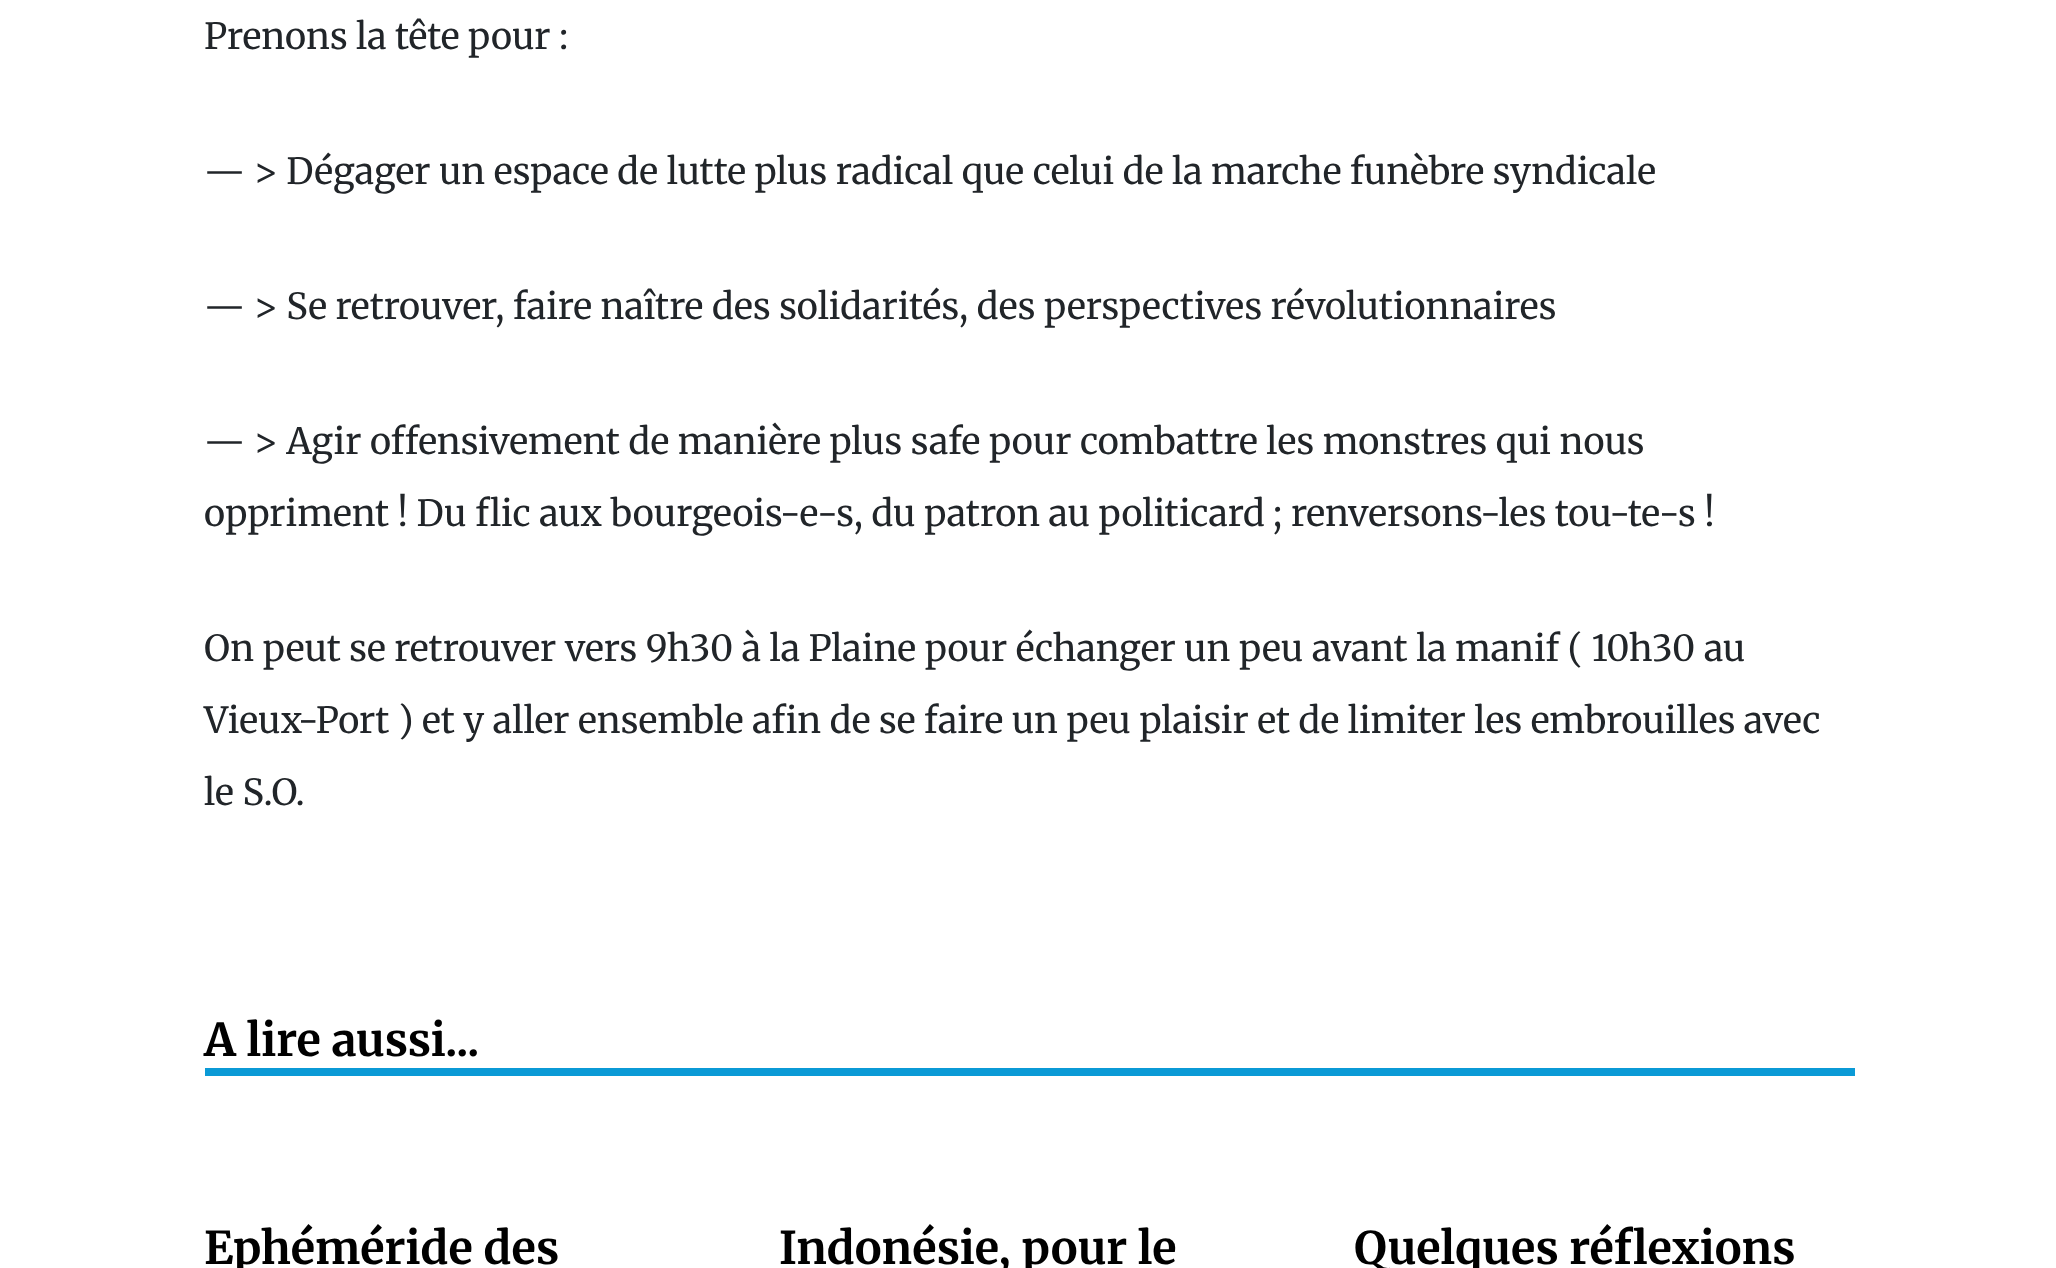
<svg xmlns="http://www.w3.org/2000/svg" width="2056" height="1268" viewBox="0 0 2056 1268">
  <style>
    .t1 { font: 36px Merriweather; fill: #212529; }
    .t2 { font: bold 45px Merriweather; fill: #000; }
  </style>
  <rect width="100%" height="100%" fill="#fff"/>
  <text x="204" y="49" class="t1">Prenons la tête pour :</text>
  <text x="204" y="184" class="t1">— &gt; Dégager un espace de lutte plus radical que celui de la marche funèbre syndicale</text>
  <text x="204" y="319" class="t1">— &gt; Se retrouver, faire naître des solidarités, des perspectives révolutionnaires</text>
  <text x="204" y="454" class="t1">— &gt; Agir offensivement de manière plus safe pour combattre les monstres qui nous</text>
  <text x="204" y="526" class="t1">oppriment ! Du flic aux bourgeois-e-s, du patron au politicard ; renversons-les tou-te-s !</text>
  <text x="204" y="661" class="t1">On peut se retrouver vers 9h30 à la Plaine pour échanger un peu avant la manif ( 10h30 au</text>
  <text x="204" y="733" class="t1">Vieux-Port ) et y aller ensemble afin de se faire un peu plaisir et de limiter les embrouilles avec</text>
  <text x="204" y="805" class="t1">le S.O.</text>
  <rect x="205" y="1068" width="1650" height="8" fill="#0b9ad6"/>
  <text x="204" y="1056" class="t2">A lire aussi...</text>
  <text x="204" y="1264" class="t2">Ephéméride des</text>
  <text x="779" y="1264" class="t2">Indonésie, pour le</text>
  <text x="1354" y="1264" class="t2">Quelques réflexions</text>
</svg>
